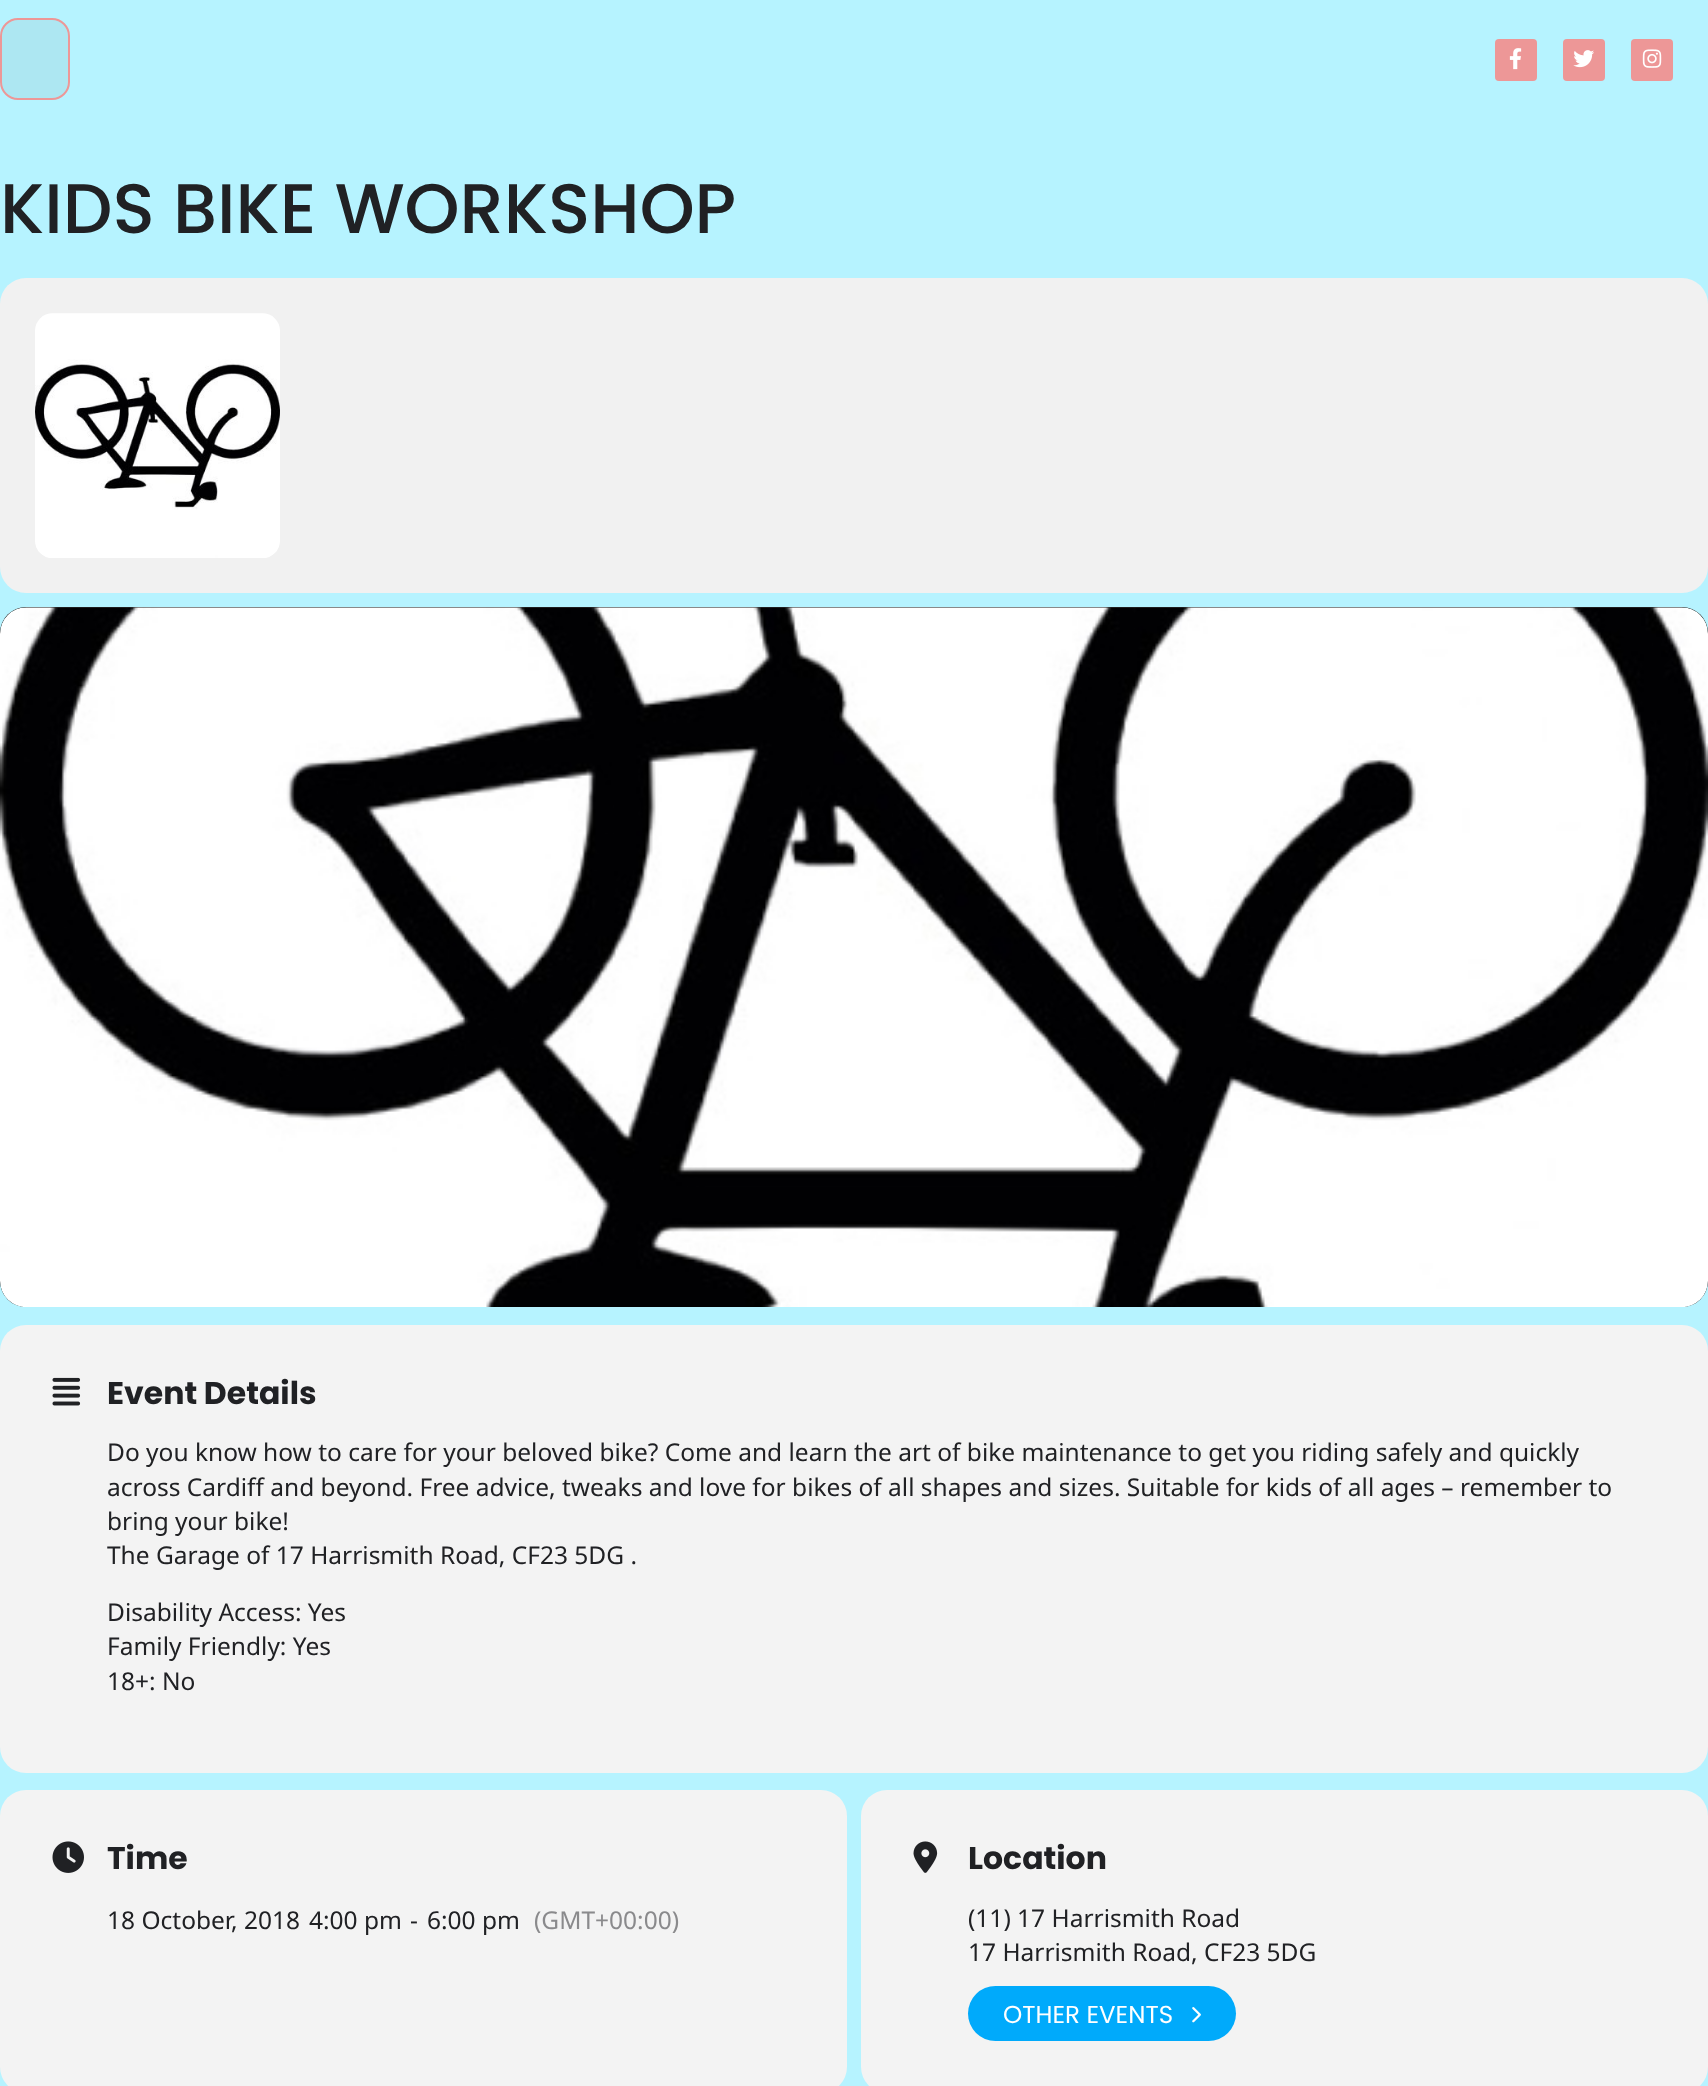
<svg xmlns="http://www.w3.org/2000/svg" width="1708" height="2086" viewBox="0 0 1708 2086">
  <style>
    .t1 { font: 500 70px Poppins; fill: #202124; }
    .t2 { font: bold 31.5px Poppins; fill: #202124; }
    .t3 { font: 24.5px Noto Sans; fill: #202124; }
    .t4 { font: 24.5px Noto Sans; fill: #8a8a8c; }
    .t5 { font: 24.5px Poppins; fill: #fff; }
  </style>
  <rect width="100%" height="100%" fill="#b6f3ff"/>
  <rect x="1" y="19" width="68" height="80" rx="17" fill="#ade7f2" stroke="#ed9797" stroke-width="2"/>
  <rect x="1495" y="39" width="42" height="42" rx="4" fill="#ed9797"/>
  <image x="1509" y="48" width="13" height="22" href="images/1.png"/>
  <rect x="1563" y="39" width="42" height="42" rx="4" fill="#ed9797"/>
  <image x="1573" y="50" width="21" height="18" href="images/2.png"/>
  <rect x="1631" y="39" width="42" height="42" rx="4" fill="#ed9797"/>
  <image x="1642" y="49" width="20" height="19" href="images/3.png"/>
  <text x="0" y="233" class="t1">KIDS BIKE WORKSHOP</text>
  <rect x="0" y="278" width="1708" height="315" rx="26" fill="#f1f1f1"/>
  <image x="35" y="313" width="245" height="245" href="images/4.png"/>
  <rect x="0" y="607" width="1708" height="700" rx="26" fill="#333"/>
  <image x="0" y="607" width="1708" height="700" href="images/5.png"/>
  <rect x="0" y="1325" width="1708" height="448" rx="26" fill="#f3f3f3"/>
  <image x="52" y="1377" width="29" height="29" href="images/6.png"/>
  <text x="107" y="1404" class="t2">Event Details</text>
  <text x="107" y="1461" class="t3">Do you know how to care for your beloved bike? Come and learn the art of bike maintenance to get you riding safely and quickly</text>
  <text x="107" y="1496" class="t3">across Cardiff and beyond. Free advice, tweaks and love for bikes of all shapes and sizes. Suitable for kids of all ages – remember to</text>
  <text x="107" y="1530" class="t3">bring your bike!</text>
  <text x="107" y="1564" class="t3">The Garage of 17 Harrismith Road, CF23 5DG .</text>
  <text x="107" y="1621" class="t3">Disability Access: Yes</text>
  <text x="107" y="1655" class="t3">Family Friendly: Yes</text>
  <text x="107" y="1690" class="t3">18+: No</text>
  <rect x="0" y="1790" width="847" height="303" rx="26" fill="#f3f3f3"/>
  <image x="52" y="1841" width="32" height="32" href="images/7.png"/>
  <text x="107" y="1869" class="t2">Time</text>
  <text x="107" y="1929" class="t3">18 October, 2018</text>
  <text x="309" y="1929" class="t3">4:00 pm</text>
  <text x="410" y="1929" class="t3">-</text>
  <text x="427" y="1929" class="t3">6:00 pm</text>
  <text x="534" y="1929" class="t4">(GMT+00:00)</text>
  <rect x="861" y="1790" width="847" height="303" rx="26" fill="#f3f3f3"/>
  <image x="913" y="1841" width="25" height="32" href="images/8.png"/>
  <text x="968" y="1869" class="t2">Location</text>
  <text x="968" y="1927" class="t3">(11) 17 Harrismith Road</text>
  <text x="968" y="1961" class="t3">17 Harrismith Road, CF23 5DG</text>
  <rect x="968" y="1986" width="268" height="55" rx="27.5" fill="#00aafb"/>
  <text x="1003" y="2023" class="t5">OTHER EVENTS</text>
  <image x="1192" y="2007" width="9" height="16" href="images/9.png"/>
</svg>
